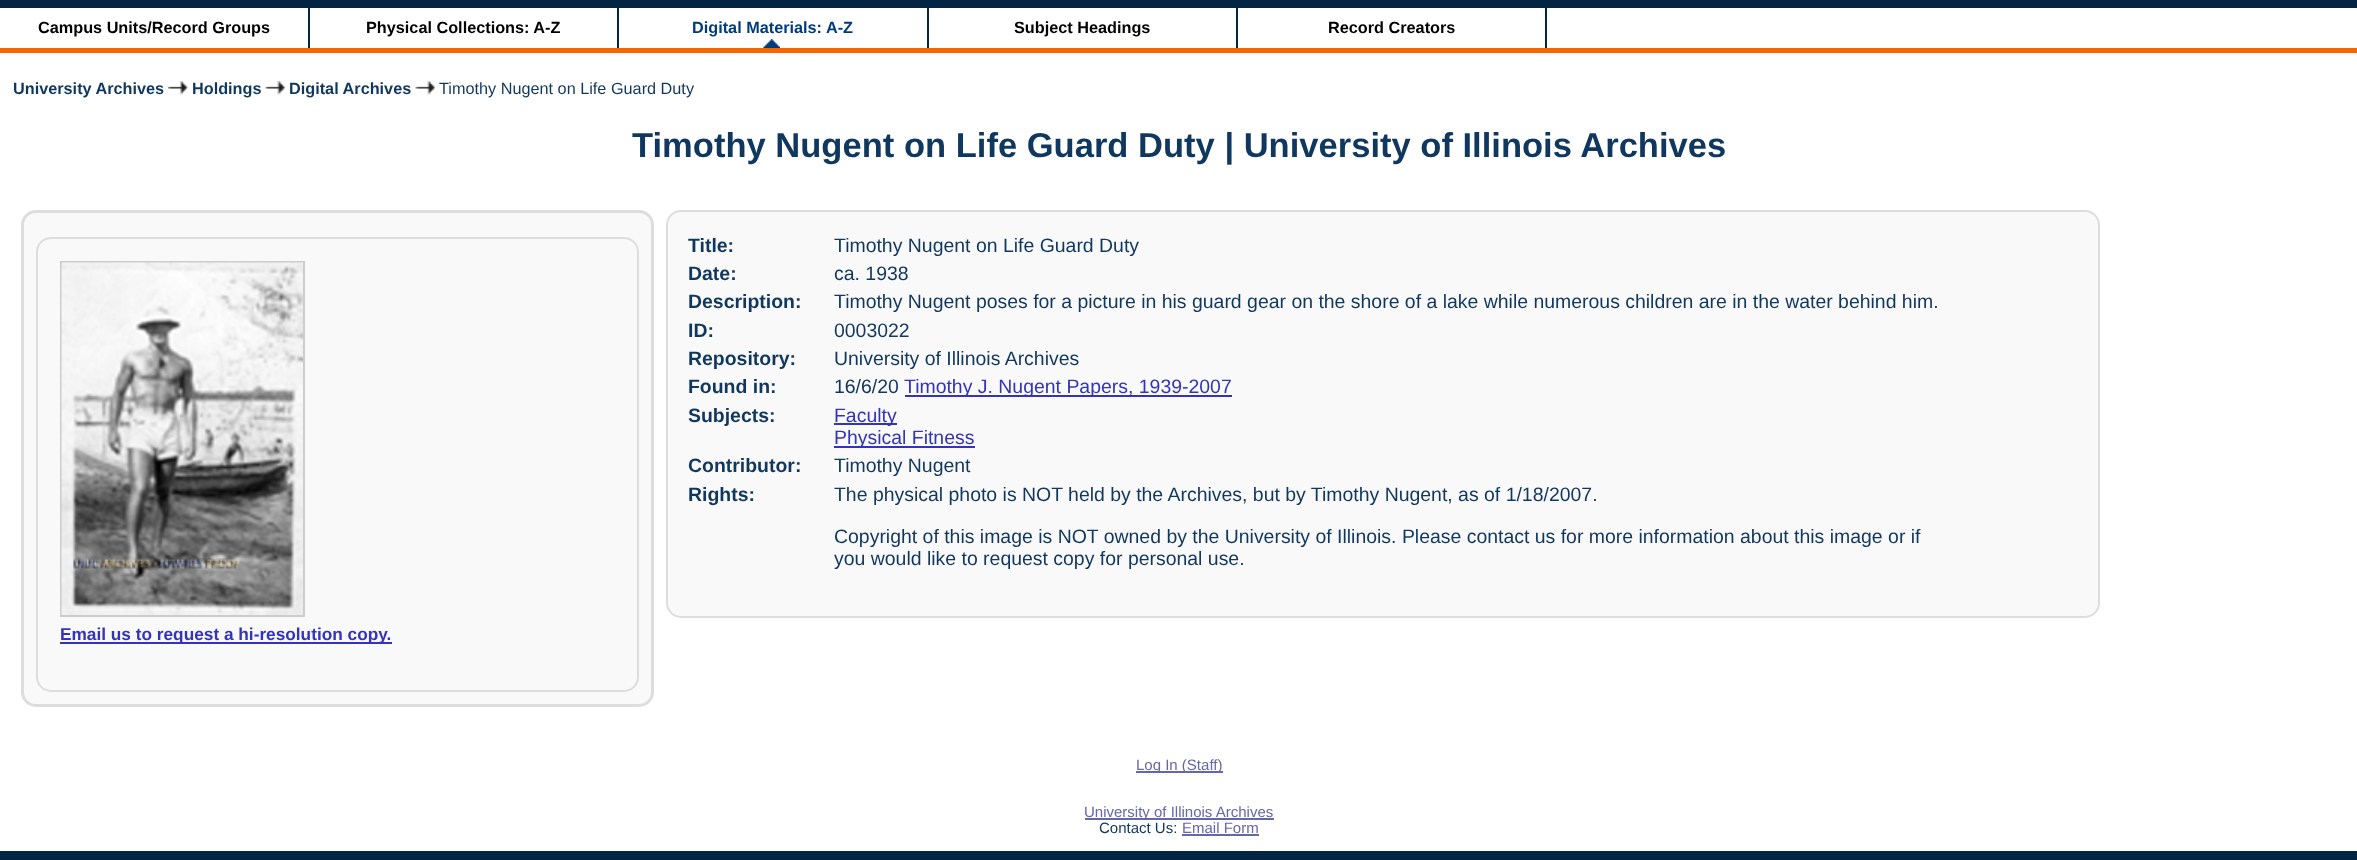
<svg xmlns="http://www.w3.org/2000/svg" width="2357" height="860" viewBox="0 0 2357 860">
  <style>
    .t1 { font: bold 16.25px Liberation Sans; fill: #000; }
    .t2 { font: bold 16.25px Liberation Sans; fill: #003c7b; }
    .t3 { font: bold 16.25px Liberation Sans; fill: #10375d; }
    .t4 { font: 16.25px Liberation Sans; fill: #10375d; }
    .t5 { font: bold 34.55px Liberation Sans; fill: #10375d; }
    .t6 { font: bold 19.45px Liberation Sans; fill: #10375d; }
    .t7 { font: 19.45px Liberation Sans; fill: #10375d; }
    .t8 { font: 19.45px Liberation Sans; fill: #33b; }
    .t9 { font: bold 17.25px Liberation Sans; fill: #33b; }
    .t10 { font: 15px Liberation Sans; fill: #66a; }
    .t11 { font: 15px Liberation Sans; fill: #10375d; }
  </style>
  <rect width="100%" height="100%" fill="#fff"/>
  <rect x="0" y="0" width="2357" height="8" fill="#022544"/>
  <rect x="0" y="48" width="2357" height="5" fill="#fa6300"/>
  <rect x="308" y="8" width="2" height="40" fill="#022544"/>
  <text x="38" y="33" class="t1">Campus Units/Record Groups</text>
  <rect x="617" y="8" width="2" height="40" fill="#022544"/>
  <text x="366" y="33" class="t1">Physical Collections: A-Z</text>
  <image x="763" y="39" width="17" height="9" href="images/1.png"/>
  <rect x="927" y="8" width="2" height="40" fill="#022544"/>
  <text x="692" y="33" class="t2">Digital Materials: A-Z</text>
  <rect x="1236" y="8" width="2" height="40" fill="#022544"/>
  <text x="1014" y="33" class="t1">Subject Headings</text>
  <rect x="1545" y="8" width="2" height="40" fill="#022544"/>
  <text x="1328" y="33" class="t1">Record Creators</text>
  <text x="13" y="94" class="t3">University Archives</text>
  <image x="168" y="81" width="20" height="14" href="images/2.png"/>
  <text x="192" y="94" class="t3">Holdings</text>
  <image x="265" y="81" width="20" height="14" href="images/3.png"/>
  <text x="289" y="94" class="t3">Digital Archives</text>
  <image x="415" y="81" width="20" height="14" href="images/4.png"/>
  <text x="439" y="94" class="t4">Timothy Nugent on Life Guard Duty</text>
  <text x="632" y="157" class="t5">Timothy Nugent on Life Guard Duty | University of Illinois Archives</text>
  <rect x="667" y="211" width="1432" height="406" rx="14" fill="#f9f9fa" stroke="#ddd" stroke-width="2"/>
  <text x="688" y="252" class="t6">Title:</text>
  <text x="834" y="252" class="t7">Timothy Nugent on Life Guard Duty</text>
  <text x="688" y="280" class="t6">Date:</text>
  <text x="834" y="280" class="t7">ca. 1938</text>
  <text x="688" y="308" class="t6">Description:</text>
  <text x="834" y="308" class="t7">Timothy Nugent poses for a picture in his guard gear on the shore of a lake while numerous children are in the water behind him.</text>
  <text x="688" y="337" class="t6">ID:</text>
  <text x="834" y="337" class="t7">0003022</text>
  <text x="688" y="365" class="t6">Repository:</text>
  <text x="834" y="365" class="t7">University of Illinois Archives</text>
  <text x="688" y="393" class="t6">Found in:</text>
  <text x="834" y="393" class="t7">16/6/20</text>
  <rect x="905" y="395" width="327" height="2" fill="#33b"/>
  <text x="904" y="393" class="t8">Timothy J. Nugent Papers, 1939-2007</text>
  <text x="688" y="422" class="t6">Subjects:</text>
  <rect x="834" y="423" width="63" height="2" fill="#33b"/>
  <text x="834" y="422" class="t8">Faculty</text>
  <rect x="834" y="446" width="141" height="2" fill="#33b"/>
  <text x="834" y="444" class="t8">Physical Fitness</text>
  <text x="688" y="472" class="t6">Contributor:</text>
  <text x="834" y="472" class="t7">Timothy Nugent</text>
  <text x="688" y="501" class="t6">Rights:</text>
  <text x="834" y="501" class="t7">The physical photo is NOT held by the Archives, but by Timothy Nugent, as of 1/18/2007.</text>
  <text x="834" y="543" class="t7">Copyright of this image is NOT owned by the University of Illinois. Please contact us for more information about this image or if</text>
  <text x="834" y="565" class="t7">you would like to request copy for personal use.</text>
  <rect x="22.5" y="211.5" width="630" height="494" rx="13.5" fill="#f9f9fa" stroke="#ddd" stroke-width="3"/>
  <rect x="37" y="238" width="601" height="453" rx="14" fill="none" stroke="#ddd" stroke-width="2"/>
  <rect x="61" y="262" width="243" height="354" fill="none" stroke="#ccc" stroke-width="2"/>
  <image x="61" y="262" width="242" height="353" href="images/5.png"/>
  <rect x="60" y="642" width="332" height="2" fill="#33b"/>
  <text x="60" y="640" class="t9">Email us to request a hi-resolution copy.</text>
  <rect x="1136" y="771" width="87" height="2" fill="#66a"/>
  <text x="1136" y="770" class="t10">Log In (Staff)</text>
  <rect x="1085" y="818" width="189" height="2" fill="#66a"/>
  <text x="1084" y="817" class="t10">University of Illinois Archives</text>
  <text x="1099" y="833" class="t11">Contact Us:</text>
  <text x="1182" y="833" class="t10">Email Form</text>
  <rect x="1182" y="834" width="77" height="2" fill="#66a"/>
  <rect x="0" y="851" width="2357" height="9" fill="#022544"/>
</svg>
